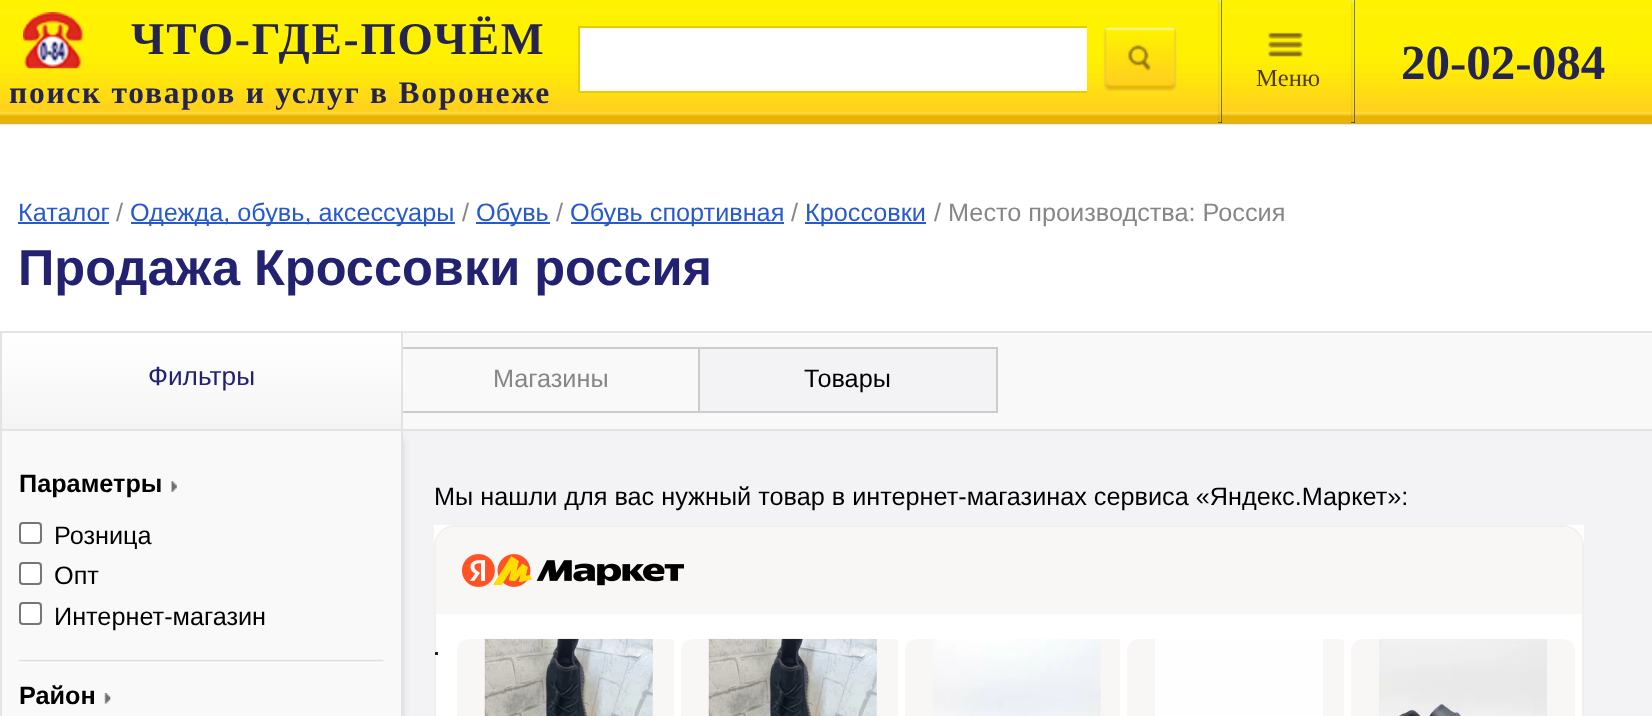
<svg xmlns="http://www.w3.org/2000/svg" width="1652" height="716" viewBox="0 0 1652 716">
  <style>
    .t1 { font: bold 45.5px Liberation Serif; letter-spacing: 1.75px; fill: #24244f; }
    .t2 { font: bold 31.5px Liberation Serif; letter-spacing: 1.75px; fill: #24244f; }
    .t3 { font: 24.5px Liberation Serif; fill: #4a3a06; }
    .t4 { font: bold 49px Liberation Serif; fill: #24244f; }
    .t5 { font: 25.25px Liberation Sans; fill: #275acd; }
    .t6 { font: 25.25px Liberation Sans; fill: #868686; }
    .t7 { font: bold 50.5px Liberation Sans; fill: #222271; }
    .t8 { font: 26.25px Liberation Sans; fill: #222271; }
    .t9 { font: 25.25px Liberation Sans; fill: #000; }
    .t10 { font: bold 25.25px Liberation Sans; fill: #000; }
  </style>
  <defs>
    <clipPath id="clip1"><rect x="560" y="0" width="527" height="142"/></clipPath>
    <linearGradient id="g1" gradientUnits="userSpaceOnUse" x1="201" y1="429" x2="201" y2="333"><stop offset="0" stop-color="#f5f5f5"/><stop offset="1" stop-color="#fff"/></linearGradient>
  </defs>
  <rect width="100%" height="100%" fill="#f3f3f5"/>
  <rect x="0" y="124" width="1652" height="207" fill="#fff"/>
  <image x="0" y="0" width="1652" height="125" href="images/1.png"/>
  <image x="23" y="12" width="60" height="57" href="images/2.png"/>
  <text x="131" y="54" class="t1">ЧТО-ГДЕ-ПОЧЁМ</text>
  <text x="9" y="103" class="t2">поиск товаров и услуг в Воронеже</text>
  <rect x="580" y="28" width="507" height="63" fill="#fff"/>
  <g clip-path="url(#clip1)">
    <rect x="579" y="27" width="524" height="65" fill="none" stroke="#e6cc00" stroke-width="2"/>
  </g>
  <image x="1103" y="26" width="74" height="65" href="images/3.png"/>
  <rect x="1218" y="0" width="4" height="123" fill="#000"/>
  <image x="1218" y="0" width="4" height="123" href="images/4.png"/>
  <image x="1268" y="32" width="35" height="25" href="images/5.png"/>
  <text x="1256" y="86" class="t3">Mеню</text>
  <rect x="1351" y="0" width="4" height="123" fill="#000"/>
  <image x="1351" y="0" width="4" height="123" href="images/4.png"/>
  <text x="1401" y="79" class="t4">20-02-084</text>
  <text x="18" y="221" class="t5">Каталог</text>
  <rect x="18" y="222" width="91" height="2" fill="#275acd"/>
  <text x="116" y="221" class="t6">/</text>
  <rect x="131" y="222" width="324" height="2" fill="#275acd"/>
  <text x="130" y="221" class="t5">Одежда, обувь, аксессуары</text>
  <text x="462" y="221" class="t6">/</text>
  <rect x="476" y="222" width="74" height="2" fill="#275acd"/>
  <text x="476" y="221" class="t5">Обувь</text>
  <text x="556" y="221" class="t6">/</text>
  <rect x="571" y="222" width="213" height="2" fill="#275acd"/>
  <text x="570" y="221" class="t5">Обувь спортивная</text>
  <text x="791" y="221" class="t6">/</text>
  <rect x="805" y="222" width="121" height="2" fill="#275acd"/>
  <text x="805" y="221" class="t5">Кроссовки</text>
  <text x="934" y="221" class="t6">/ Место производства: Россия</text>
  <text x="18" y="285" class="t7">Продажа Кроссовки россия</text>
  <rect x="2" y="439" width="399" height="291" fill="#00000033" filter="blur(4.5px)"/>
  <rect x="403" y="333" width="1249" height="96" fill="#f9f9f9"/>
  <rect x="0" y="331" width="1652" height="2" fill="#e3e3e3"/>
  <rect x="0" y="429" width="1652" height="2" fill="#e3e3e3"/>
  <rect x="2" y="333" width="399" height="91" fill="url(#g1)"/>
  <rect x="401" y="333" width="2" height="96" fill="#e3e3e3"/>
  <rect x="0" y="333" width="2" height="96" fill="#e3e3e3"/>
  <text x="148" y="385" class="t8">Фильтры</text>
  <rect x="403" y="347" width="595" height="2" fill="#ccc"/>
  <rect x="698" y="347" width="2" height="66" fill="#ccc"/>
  <rect x="403" y="411" width="297" height="2" fill="#ccc"/>
  <text x="493" y="387" class="t6">Магазины</text>
  <rect x="700" y="349" width="296" height="62" fill="#f3f3f5"/>
  <rect x="996" y="347" width="2" height="66" fill="#ccc"/>
  <rect x="700" y="411" width="298" height="2" fill="#ccc"/>
  <text x="804" y="387" class="t9">Товары</text>
  <rect x="2" y="431" width="399" height="285" fill="#f9f9f9"/>
  <rect x="401" y="431" width="2" height="285" fill="#e3e3e3"/>
  <rect x="0" y="431" width="2" height="285" fill="#e3e3e3"/>
  <text x="19" y="492" class="t10">Параметры</text>
  <image x="171" y="481" width="6" height="11" href="images/6.png"/>
  <rect x="20" y="523" width="21" height="20" rx="3" fill="#fff" stroke="#767676" stroke-width="2"/>
  <text x="54" y="544" class="t9">Розница</text>
  <rect x="20" y="563" width="21" height="21" rx="3" fill="#fff" stroke="#767676" stroke-width="2"/>
  <text x="54" y="584" class="t9">Опт</text>
  <rect x="20" y="603" width="21" height="21" rx="3" fill="#fff" stroke="#767676" stroke-width="2"/>
  <text x="54" y="625" class="t9">Интернет-магазин</text>
  <image x="19" y="659" width="365" height="4" href="images/7.png"/>
  <text x="19" y="704" class="t10">Район</text>
  <image x="104" y="693" width="7" height="11" href="images/8.png"/>
  <text x="434" y="505" class="t9">Мы нашли для вас нужный товар в интернет-магазинах сервиса «Яндекс.Маркет»:</text>
  <rect x="434" y="525" width="1150" height="191" fill="#fff"/>
  <rect x="435" y="526" width="1148" height="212" rx="20" fill="none" stroke="#f1f0ed" stroke-width="2"/>
  <path d="M455 527H1563C1573.5 527 1582 535.5 1582 546V614H436V546C436 535.5 444.5 527 455 527Z" fill="#f8f7f5"/>
  <image x="462" y="554" width="222" height="33" href="images/9.png"/>
  <rect x="435" y="652" width="3" height="3" fill="#000000de"/>
  <rect x="457" y="639" width="224" height="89" rx="12" fill="#f8f7f5"/>
  <image x="484" y="638" width="169" height="78" href="images/10.png"/>
  <rect x="674" y="640" width="7" height="76" fill="#fff"/>
  <rect x="681" y="639" width="224" height="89" rx="12" fill="#f8f7f5"/>
  <image x="708" y="638" width="169" height="78" href="images/10.png"/>
  <rect x="898" y="640" width="7" height="76" fill="#fff"/>
  <rect x="905" y="639" width="224" height="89" rx="12" fill="#f8f7f5"/>
  <image x="933" y="639" width="168" height="77" href="images/11.png"/>
  <rect x="1120" y="639" width="9" height="77" fill="#fff"/>
  <rect x="1127" y="639" width="224" height="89" rx="12" fill="#f8f7f5"/>
  <rect x="1155" y="639" width="168" height="77" fill="#fefefe"/>
  <rect x="1344" y="640" width="7" height="76" fill="#fff"/>
  <rect x="1351" y="639" width="224" height="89" rx="12" fill="#f8f7f5"/>
  <image x="1379" y="639" width="168" height="77" href="images/12.png"/>
</svg>
